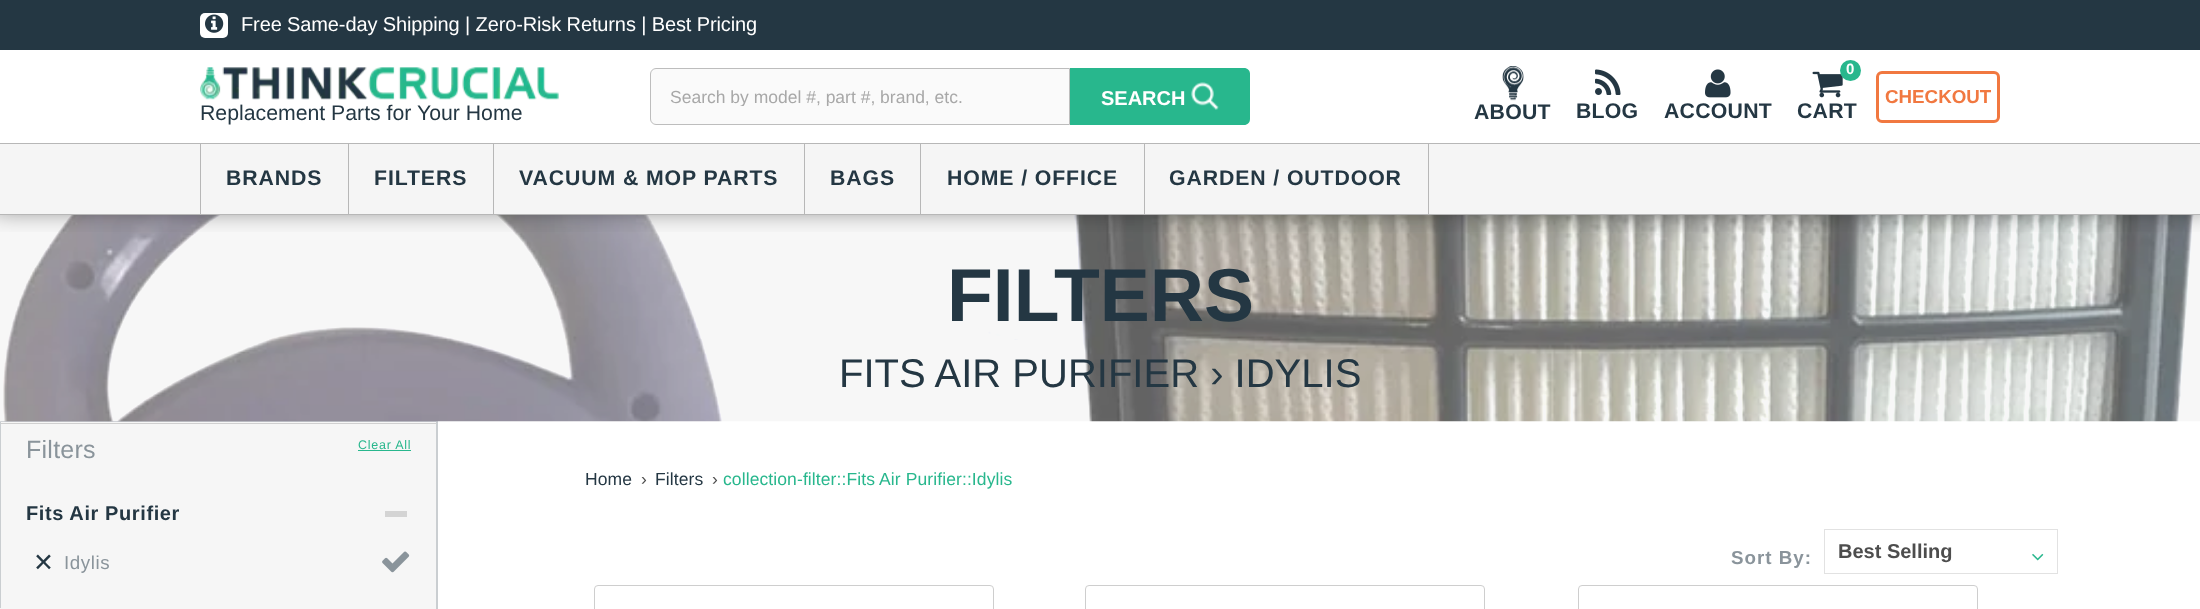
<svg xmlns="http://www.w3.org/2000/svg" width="2200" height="609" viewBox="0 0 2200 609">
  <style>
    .t1 { font: 20px Liberation Sans; letter-spacing: -0.12px; fill: #fff; }
    .t2 { font: 17.5px Liberation Sans; fill: #a8a8a8; }
    .t3 { font: bold 20px Liberation Sans; fill: #fff; }
    .t4 { font: bold 15px Liberation Sans; fill: #fff; }
    .t5 { font: bold 21.25px Liberation Sans; letter-spacing: 0.25px; fill: #243743; }
    .t6 { font: bold 18.75px Liberation Sans; fill: #f17840; }
    .t7 { font: 21.25px Liberation Sans; fill: #243743; }
    .t8 { font: bold 21.25px Liberation Sans; letter-spacing: 0.9px; fill: #243743; }
    .t9 { font: bold 75px Liberation Sans; fill: #243743; }
    .t10 { font: 40px Liberation Sans; fill: #243743; }
    .t11 { font: 25px Liberation Sans; letter-spacing: 0.25px; fill: #8a949b; }
    .t12 { font: 12.5px Liberation Sans; letter-spacing: 0.75px; fill: #28b78d; }
    .t13 { font: bold 20px Liberation Sans; letter-spacing: 0.6px; fill: #243743; }
    .t14 { font: 25px DejaVu Sans; letter-spacing: 0.6px; fill: #243743; }
    .t15 { font: 18.75px Liberation Sans; letter-spacing: 0.6px; fill: #8a949b; }
    .t16 { font: 17.5px Liberation Sans; letter-spacing: 0.1px; fill: #243743; }
    .t17 { font: 17.5px Liberation Sans; fill: #4d4d4d; }
    .t18 { font: 17.5px Liberation Sans; letter-spacing: 0.1px; fill: #28b78d; }
    .t19 { font: bold 18.75px Liberation Sans; letter-spacing: 1px; fill: #8a949b; }
    .t20 { font: bold 20px Liberation Sans; fill: #4d4d4d; }
  </style>
  <defs>
    <clipPath id="clip1"><rect x="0" y="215" width="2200" height="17"/></clipPath>
    <clipPath id="clip2"><rect x="670" y="86" width="380" height="20"/></clipPath>
  </defs>
  <rect width="100%" height="100%" fill="#fff"/>
  <rect x="0" y="421" width="438" height="188" fill="#f6f6f6"/>
  <path d="M0 421H438L436 422H1Z" fill="#cbced2"/>
  <path d="M438 421V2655H436V422Z" fill="#8a939b66"/>
  <path d="M0 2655V421L1 422V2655Z" fill="#8a939b66"/>
  <image x="0" y="215" width="2200" height="207" href="images/8.png"/>
  <g clip-path="url(#clip1)">
    <rect x="-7" y="-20" width="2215" height="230" fill="#00000080" filter="blur(12.5px)"/>
  </g>
  <rect x="0" y="0" width="2200" height="50" fill="#243743"/>
  <rect x="200" y="13" width="28" height="25" rx="5" fill="#fff"/>
  <image x="205" y="14" width="19" height="19" href="images/1.png"/>
  <text x="241" y="31" class="t1">Free Same-day Shipping | Zero-Risk Returns | Best Pricing</text>
  <path d="M656 68.5H1069.5V124.5H656C653 124.5 650.5 122 650.5 119V74C650.5 71 653 68.5 656 68.5Z" fill="#fafafa" stroke="#bdbdbd"/>
  <g clip-path="url(#clip2)">
    <text x="670" y="103" class="t2">Search by model #, part #, brand, etc.</text>
  </g>
  <path d="M1070 68H1244C1247.5 68 1250 70.5 1250 74V119C1250 122.5 1247.5 125 1244 125H1070Z" fill="#28b78d"/>
  <text x="1101" y="105" class="t3">SEARCH</text>
  <image x="1191" y="82" width="28" height="28" href="images/2.png"/>
  <image x="1812" y="71" width="31" height="27" href="images/3.png"/>
  <circle cx="1850.5" cy="70.5" r="10.5" fill="#28b78d"/>
  <text x="1846" y="74" class="t4">0</text>
  <text x="1797" y="118" class="t5">CART</text>
  <rect x="1877.5" y="72.5" width="121" height="49" rx="4.5" fill="none" stroke="#f17840" stroke-width="3"/>
  <text x="1885" y="103" class="t6">CHECKOUT</text>
  <image x="1502" y="66" width="22" height="35" href="images/4.png"/>
  <text x="1474" y="119" class="t5">ABOUT</text>
  <image x="1595" y="69" width="26" height="26" href="images/5.png"/>
  <text x="1576" y="118" class="t5">BLOG</text>
  <image x="1705" y="69" width="26" height="29" href="images/6.png"/>
  <text x="1664" y="118" class="t5">ACCOUNT</text>
  <image x="200" y="67" width="359" height="33" href="images/7.png"/>
  <text x="200" y="120" class="t7">Replacement Parts for Your Home</text>
  <rect x="0" y="144" width="2200" height="70" fill="#f5f5f5"/>
  <rect x="0" y="143" width="2200" height="1" fill="#b7b7b7"/>
  <rect x="0" y="214" width="2200" height="1" fill="#b7b7b7"/>
  <rect x="200" y="144" width="1" height="70" fill="#b7b7b7"/>
  <text x="226" y="185" class="t8">BRANDS</text>
  <rect x="348" y="144" width="1" height="70" fill="#b7b7b7"/>
  <text x="374" y="185" class="t8">FILTERS</text>
  <rect x="493" y="144" width="1" height="70" fill="#b7b7b7"/>
  <text x="519" y="185" class="t8">VACUUM &amp; MOP PARTS</text>
  <rect x="804" y="144" width="1" height="70" fill="#b7b7b7"/>
  <text x="830" y="185" class="t8">BAGS</text>
  <rect x="920" y="144" width="1" height="70" fill="#b7b7b7"/>
  <text x="947" y="185" class="t8">HOME / OFFICE</text>
  <rect x="1428" y="144" width="1" height="70" fill="#b7b7b7"/>
  <rect x="1144" y="144" width="1" height="70" fill="#b7b7b7"/>
  <text x="1169" y="185" class="t8">GARDEN / OUTDOOR</text>
  <text x="947" y="321" class="t9">FILTERS</text>
  <text x="839" y="387" class="t10">FITS AIR PURIFIER › IDYLIS</text>
  <rect x="1" y="423" width="435" height="1" fill="#d0d0d0"/>
  <text x="26" y="458" class="t11">Filters</text>
  <text x="358" y="449" class="t12">Clear All</text>
  <rect x="358" y="450" width="53" height="1" fill="#28b78d"/>
  <text x="26" y="520" class="t13">Fits Air Purifier</text>
  <rect x="385" y="511" width="22" height="6" fill="#d4d4d4"/>
  <text x="33" y="571" class="t14">✕</text>
  <text x="64" y="569" class="t15">Idylis</text>
  <image x="382" y="551" width="28" height="22" href="images/9.png"/>
  <text x="585" y="485" class="t16">Home</text>
  <text x="641" y="485" class="t17">›</text>
  <text x="655" y="485" class="t16">Filters</text>
  <text x="712" y="485" class="t17">›</text>
  <text x="723" y="485" class="t18">collection-filter::Fits Air Purifier::Idylis</text>
  <text x="1731" y="564" class="t19">Sort By:</text>
  <image x="2032" y="553" width="12" height="8" href="images/10.png"/>
  <rect x="1824.5" y="529.5" width="233" height="44" fill="none" stroke="#e2e2e2"/>
  <text x="1838" y="558" class="t20">Best Selling</text>
  <rect x="594.5" y="585.5" width="399" height="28" rx="3.5" fill="none" stroke="#cecece"/>
  <rect x="1085.5" y="585.5" width="399" height="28" rx="3.5" fill="none" stroke="#cecece"/>
  <rect x="1578.5" y="585.5" width="399" height="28" rx="3.5" fill="none" stroke="#cecece"/>
  <rect x="0" y="608" width="3" height="1" fill="#f5f5f5"/>
</svg>
